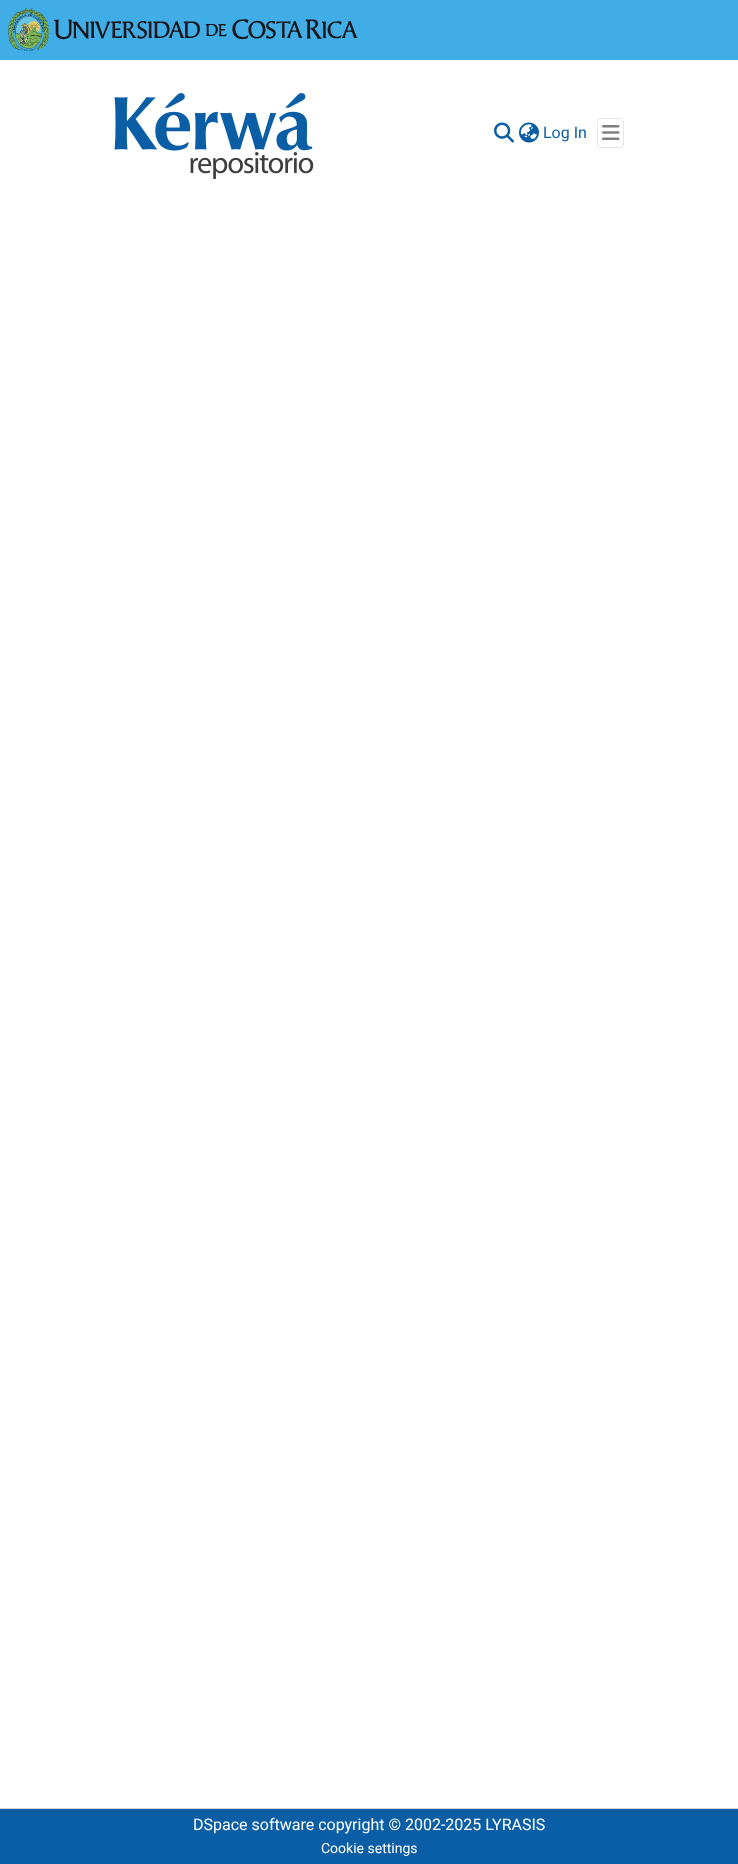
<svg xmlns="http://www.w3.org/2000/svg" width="738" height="1864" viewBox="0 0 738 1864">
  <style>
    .t1 { font: 16px Roboto; fill: #0a5ea5; }
    .t2 { font: 16px Roboto; fill: #fff; }
    .t3 { font: 14px Roboto; fill: #fff; }
  </style>
  <rect width="100%" height="100%" fill="#fff"/>
  <rect x="0" y="0" width="738" height="60" fill="#41ade7"/>
  <image x="8" y="8" width="350" height="44" href="images/1.png"/>
  <image x="114" y="93" width="200" height="86" href="images/2.png"/>
  <image x="494" y="122" width="20" height="21" href="images/3.png"/>
  <image x="519" y="122" width="20" height="21" href="images/4.png"/>
  <text x="543" y="138" class="t1">Log In</text>
  <rect x="597.5" y="118.5" width="26" height="29" rx="3.5" fill="none" stroke="#e6e6e6"/>
  <image x="602" y="125" width="18" height="15" href="images/5.png"/>
  <rect x="0" y="1809" width="738" height="55" fill="#0a5ea5"/>
  <rect x="0" y="1808" width="738" height="1" fill="#ced4da"/>
  <text x="193" y="1830" class="t2">DSpace software copyright © 2002-2025 LYRASIS</text>
  <text x="321" y="1853" class="t3">Cookie settings</text>
</svg>
